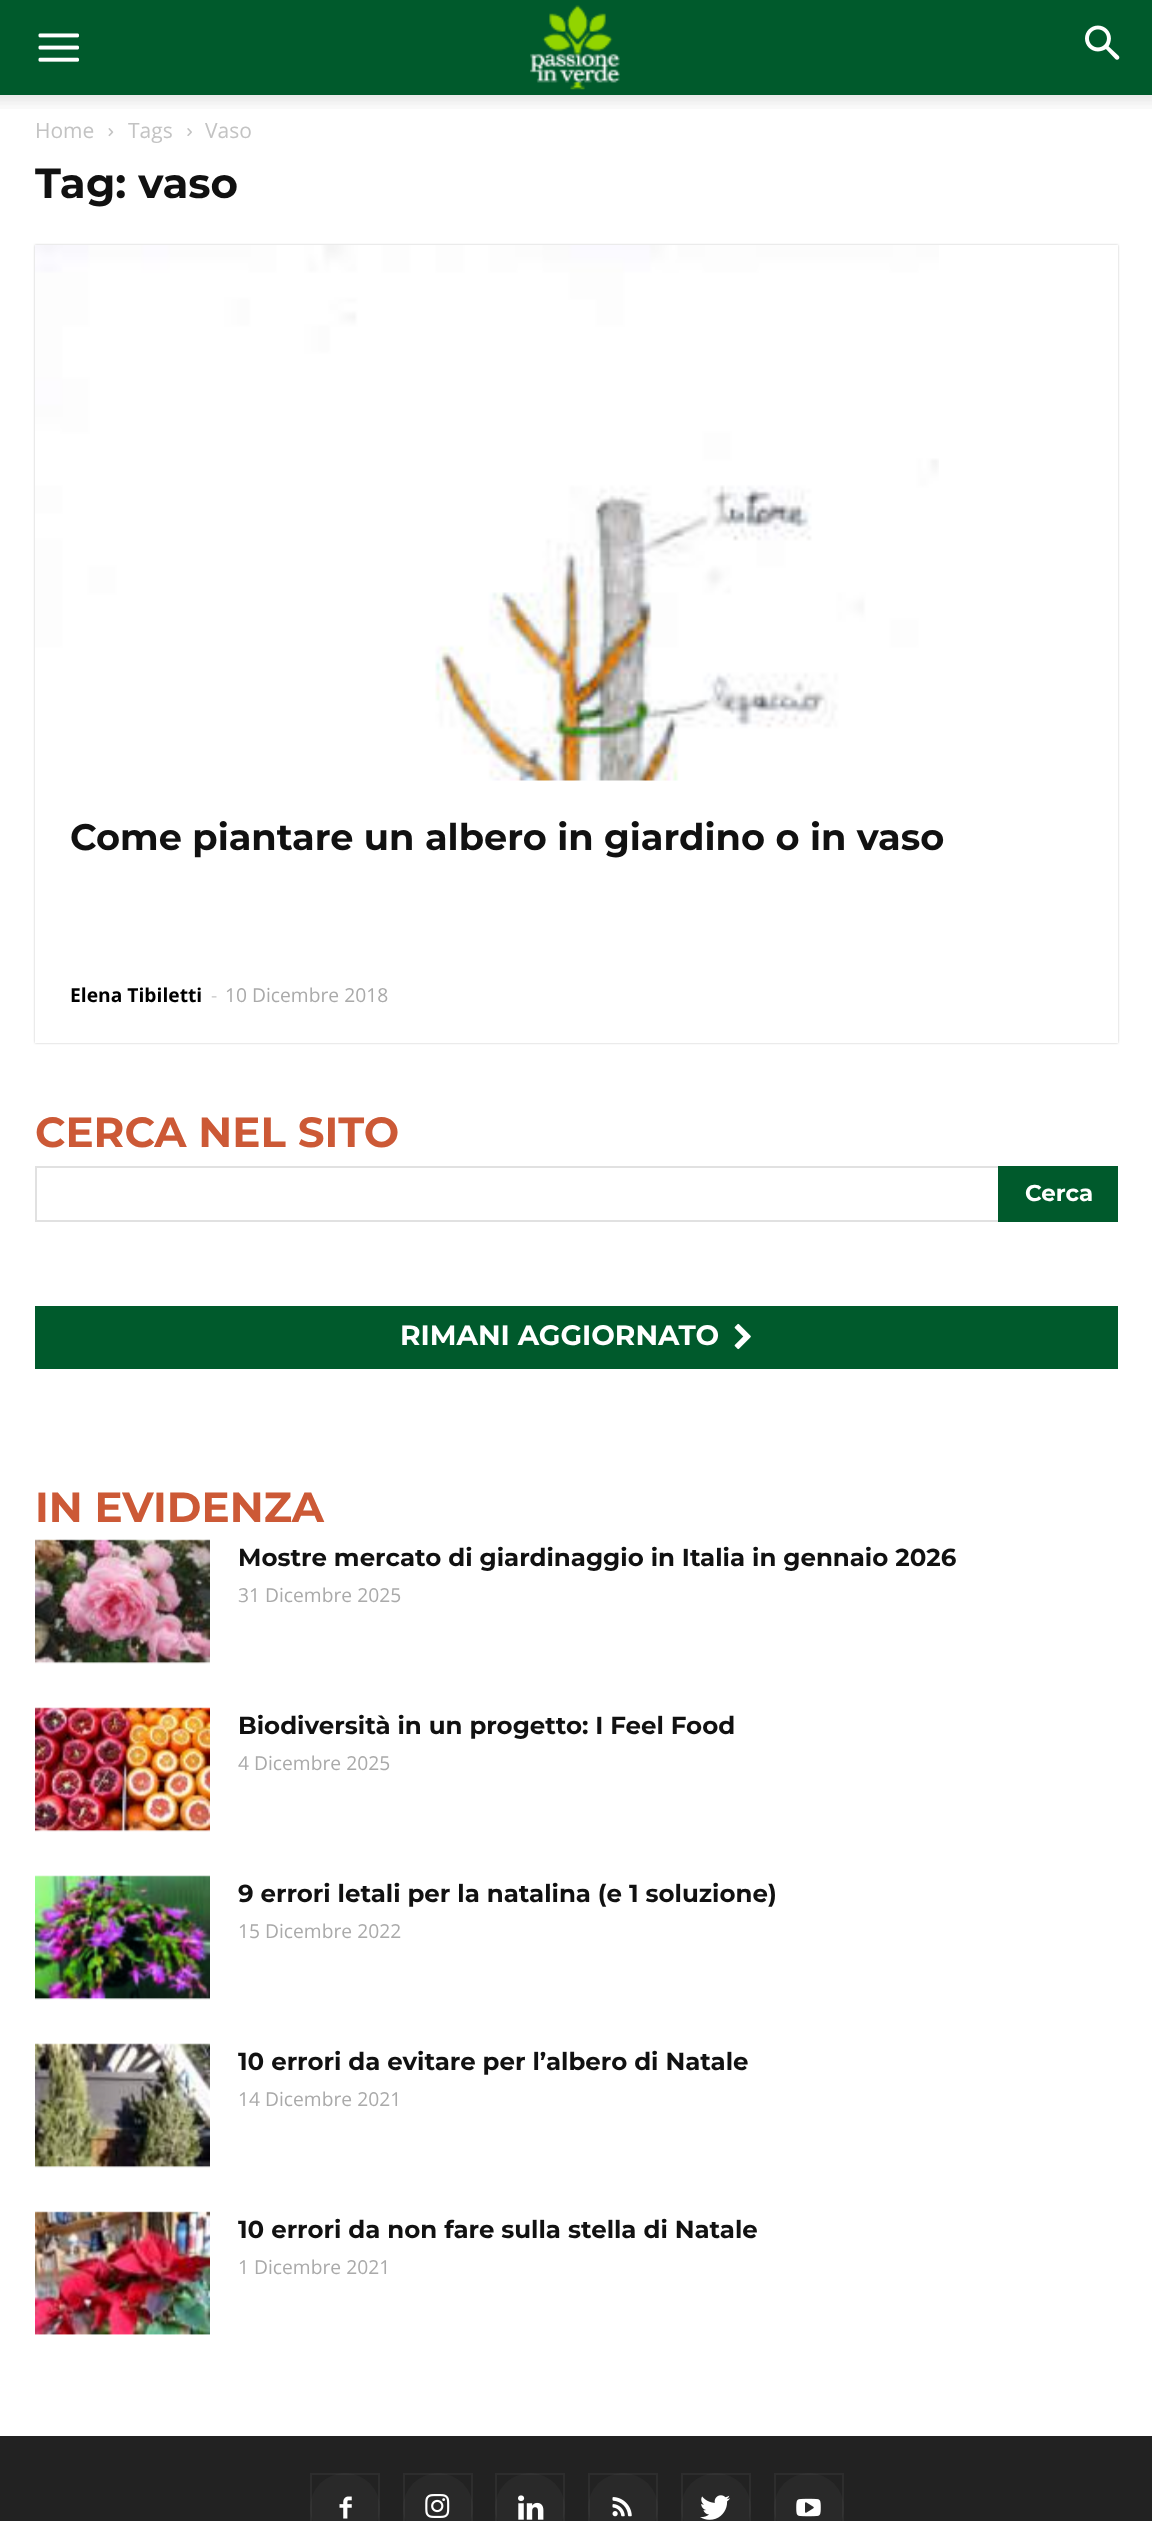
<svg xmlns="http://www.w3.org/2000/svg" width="1152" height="2521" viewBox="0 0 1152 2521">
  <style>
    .t1 { font: 21px Open Sans; fill: #c3c3c3; }
    .t2 { font: 100 42px Montserrat; fill: #111; }
    .t3 { font: 100 36.75px Montserrat; fill: #111; }
    .t4 { font: bold 19.25px Open Sans; fill: #000; }
    .t5 { font: 19.25px Open Sans; fill: #ccc; }
    .t6 { font: 19.25px Open Sans; fill: #aaa; }
    .t7 { font: 100 42px Montserrat; fill: #cc5936; }
    .t8 { font: 100 23px Montserrat; fill: #fff; }
    .t9 { font: 100 28px Montserrat; fill: #fff; }
    .t10 { font: 100 24.5px Montserrat; fill: #111; }
  </style>
  <defs>
    <clipPath id="clip1"><path d="M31 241H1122V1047H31ZM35 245H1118V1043H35Z" clip-rule="evenodd"/></clipPath>
  </defs>
  <rect width="100%" height="100%" fill="#fff"/>
  <rect x="0" y="0" width="1152" height="95" fill="#005a2c"/>
  <image x="38" y="33" width="41" height="29" href="images/1.png"/>
  <image x="530" y="5" width="90" height="85" href="images/2.png"/>
  <image x="1085" y="25" width="35" height="35" href="images/3.png"/>
  <image x="0" y="95" width="1152" height="14" href="images/4.png"/>
  <text x="35" y="138" class="t1">Home</text>
  <image x="108" y="128" width="6" height="9" href="images/5.png"/>
  <text x="128" y="138" class="t1">Tags</text>
  <image x="187" y="128" width="5" height="8" href="images/6.png"/>
  <text x="205" y="138" class="t1">Vaso</text>
  <text x="35" y="198" class="t2">Tag: vaso</text>
  <g clip-path="url(#clip1)">
    <rect x="35" y="245" width="1083" height="798" fill="#66666666" filter="blur(1px)"/>
  </g>
  <image x="35" y="245" width="904" height="536" href="images/7.png"/>
  <text x="70" y="850" class="t3">Come piantare un albero in giardino o in vaso</text>
  <text x="70" y="1002" class="t4">Elena Tibiletti</text>
  <text x="211" y="1002" class="t5">-</text>
  <text x="225" y="1002" class="t6">10 Dicembre 2018</text>
  <text x="35" y="1147" class="t7">CERCA NEL SITO</text>
  <rect x="35" y="1166" width="963" height="2" fill="#e1e1e1"/>
  <rect x="35" y="1220" width="963" height="2" fill="#e1e1e1"/>
  <rect x="35" y="1166" width="2" height="56" fill="#e1e1e1"/>
  <rect x="998" y="1166" width="120" height="56" fill="#005a2c"/>
  <text x="1025" y="1201" class="t8">Cerca</text>
  <rect x="35" y="1306" width="1083" height="63" fill="#005a2c"/>
  <text x="400" y="1345" class="t9">RIMANI AGGIORNATO</text>
  <image x="734" y="1323" width="17" height="27" href="images/8.png"/>
  <text x="35" y="1522" class="t7">IN EVIDENZA</text>
  <image x="35" y="1539" width="175" height="125" href="images/9.png"/>
  <text x="238" y="1566" class="t10">Mostre mercato di giardinaggio in Italia in gennaio 2026</text>
  <text x="238" y="1602" class="t6">31 Dicembre 2025</text>
  <image x="35" y="1707" width="175" height="125" href="images/10.png"/>
  <text x="238" y="1734" class="t10">Biodiversità in un progetto: I Feel Food</text>
  <text x="238" y="1770" class="t6">4 Dicembre 2025</text>
  <image x="35" y="1875" width="175" height="125" href="images/11.png"/>
  <text x="238" y="1902" class="t10">9 errori letali per la natalina (e 1 soluzione)</text>
  <text x="238" y="1938" class="t6">15 Dicembre 2022</text>
  <image x="35" y="2043" width="175" height="125" href="images/12.png"/>
  <text x="238" y="2070" class="t10">10 errori da evitare per l’albero di Natale</text>
  <text x="238" y="2106" class="t6">14 Dicembre 2021</text>
  <image x="35" y="2211" width="175" height="124" href="images/13.png"/>
  <text x="238" y="2238" class="t10">10 errori da non fare sulla stella di Natale</text>
  <text x="238" y="2274" class="t6">1 Dicembre 2021</text>
  <rect x="0" y="2436" width="1152" height="85" fill="#222"/>
  <circle cx="345" cy="2508" r="35" fill="#292929"/>
  <image x="339" y="2496" width="13" height="23" href="images/14.png"/>
  <rect x="311" y="2474" width="68" height="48" fill="none" stroke="#ffffff0d" stroke-width="2"/>
  <circle cx="438" cy="2508" r="35" fill="#292929"/>
  <image x="425" y="2494" width="25" height="24" href="images/15.png"/>
  <rect x="404" y="2474" width="68" height="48" fill="none" stroke="#ffffff0d" stroke-width="2"/>
  <circle cx="530" cy="2508" r="35" fill="#292929"/>
  <image x="518" y="2495" width="26" height="25" href="images/16.png"/>
  <rect x="496" y="2474" width="68" height="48" fill="none" stroke="#ffffff0d" stroke-width="2"/>
  <circle cx="623" cy="2508" r="35" fill="#292929"/>
  <image x="612" y="2497" width="20" height="20" href="images/17.png"/>
  <rect x="589" y="2474" width="68" height="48" fill="none" stroke="#ffffff0d" stroke-width="2"/>
  <circle cx="716" cy="2508" r="35" fill="#292929"/>
  <image x="700" y="2495" width="30" height="25" href="images/18.png"/>
  <rect x="682" y="2474" width="68" height="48" fill="none" stroke="#ffffff0d" stroke-width="2"/>
  <circle cx="809" cy="2508" r="35" fill="#292929"/>
  <image x="796" y="2498" width="25" height="19" href="images/19.png"/>
  <rect x="775" y="2474" width="68" height="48" fill="none" stroke="#ffffff0d" stroke-width="2"/>
</svg>
